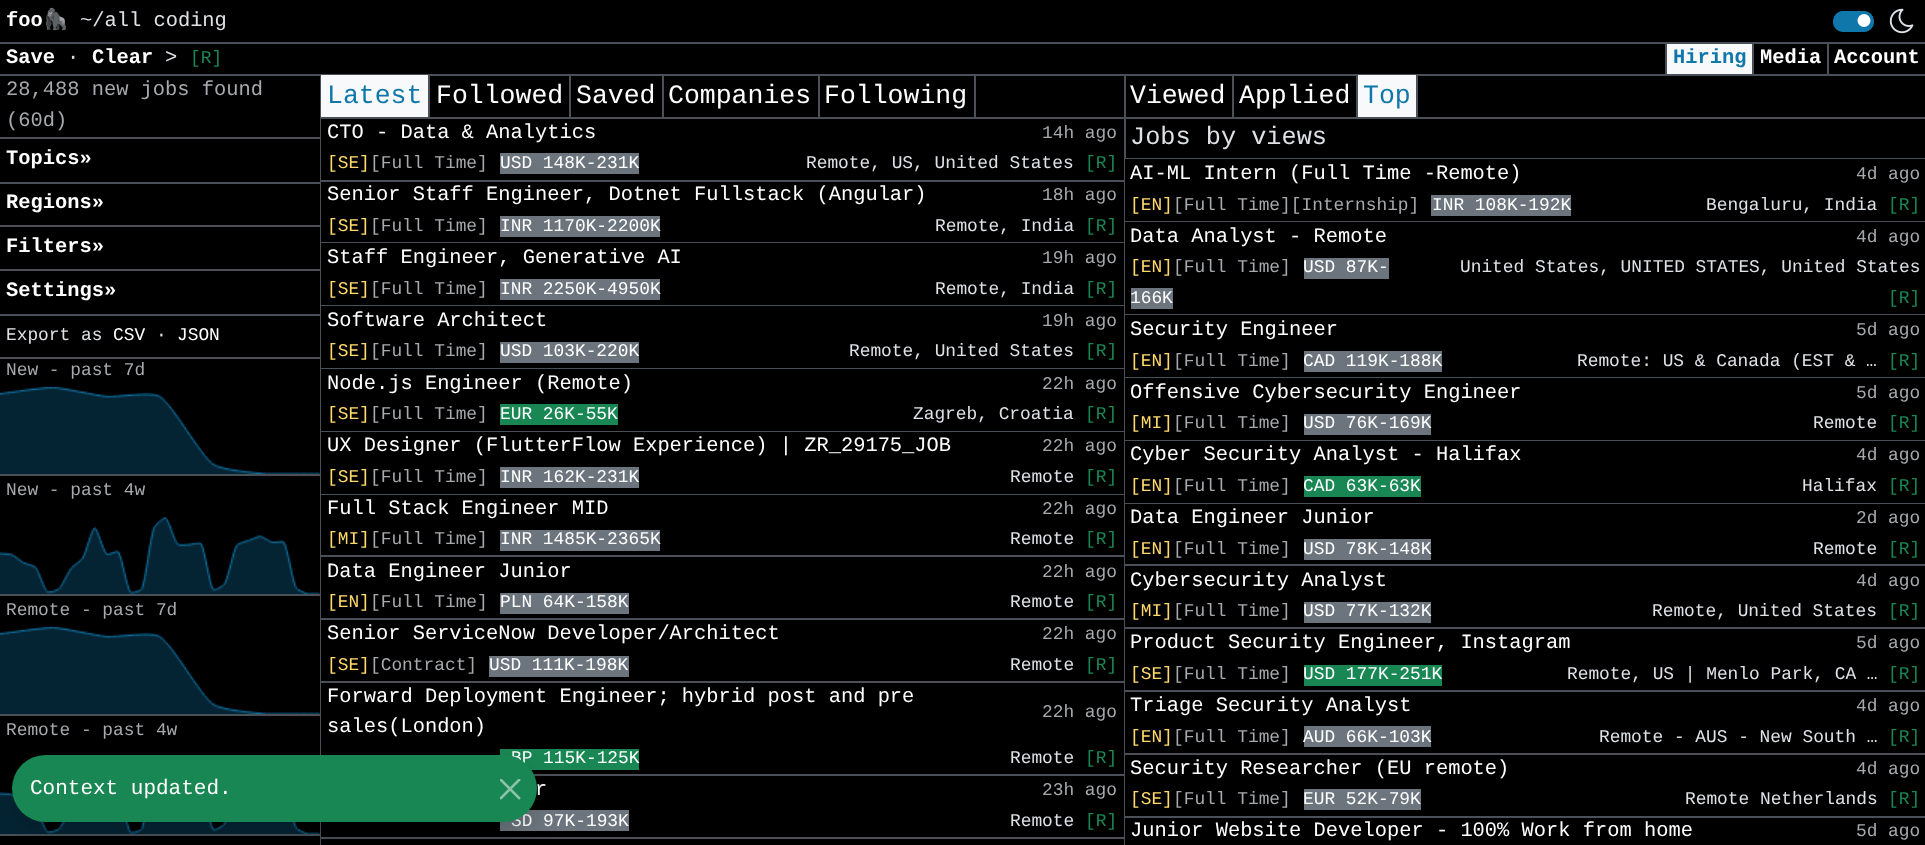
<svg xmlns="http://www.w3.org/2000/svg" width="1925" height="845" viewBox="0 0 1925 845">
  <style>
    .t1 { font: bold 20.4px Liberation Mono; fill: #fff; }
    .t2 { font: bold 20.4px Noto Color Emoji; fill: #fff; }
    .t3 { font: 20.4px Liberation Mono; fill: #dee2e6; }
    .t4 { font: 17.85px Liberation Mono; fill: #198754; }
    .t5 { font: bold 20.4px Liberation Mono; fill: #1077aa; }
    .t6 { font: 20.4px Liberation Mono; fill: #a7aaad; }
    .t7 { font: 17.85px Liberation Mono; fill: #dee2e6; }
    .t8 { font: 17.85px Liberation Mono; fill: #fff; }
    .t9 { font: 17.85px Liberation Mono; fill: #a7aaad; }
    .t10 { font: 26.5px Liberation Mono; fill: #1077aa; }
    .t11 { font: 26.5px Liberation Mono; fill: #fff; }
    .t12 { font: 20.4px Liberation Mono; fill: #fff; }
    .t13 { font: 17.85px Liberation Mono; fill: #ffda6a; }
    .t14 { font: 25.25px Liberation Mono; fill: #dee2e6; }
    .t15 { font: 21px Liberation Mono; fill: #fff; }
  </style>
  <rect width="100%" height="100%" fill="#000"/>
  <rect x="0" y="42" width="1925" height="2" fill="#495057"/>
  <text x="6" y="26" class="t1">foo</text>
  <text x="43" y="26" class="t2">🦍</text>
  <text x="80" y="26" class="t3">~/all coding</text>
  <rect x="1833" y="11" width="41" height="21" rx="10.5" fill="#1077aa"/>
  <circle cx="1864" cy="20.5" r="6.5" fill="#fff"/>
  <rect x="1834" y="12" width="39" height="19" rx="9.5" fill="none" stroke="#1077aa" stroke-width="2"/>
  <image x="1889" y="8" width="25" height="26" href="images/1.png"/>
  <rect x="0" y="74" width="1925" height="2" fill="#495057"/>
  <text x="6" y="63" class="t1">Save</text>
  <text x="67" y="63" class="t3">·</text>
  <text x="92" y="63" class="t1">Clear</text>
  <text x="165" y="63" class="t3">&gt;</text>
  <text x="190" y="63" class="t4">[R]</text>
  <rect x="1667" y="44" width="85" height="30" fill="#f8f9fa"/>
  <rect x="1665" y="44" width="2" height="30" fill="#495057"/>
  <text x="1673" y="63" class="t5">Hiring</text>
  <rect x="1752" y="44" width="2" height="30" fill="#495057"/>
  <text x="1760" y="63" class="t1">Media</text>
  <rect x="1827" y="44" width="2" height="30" fill="#495057"/>
  <text x="1834" y="63" class="t1">Account</text>
  <rect x="320" y="75" width="1" height="770" fill="#495057"/>
  <rect x="0" y="137" width="320" height="2" fill="#495057"/>
  <text x="6" y="95" class="t6">28,488 new jobs found</text>
  <text x="6" y="126" class="t6">(60d)</text>
  <rect x="0" y="182" width="320" height="2" fill="#495057"/>
  <text x="6" y="164" class="t1">Topics»</text>
  <rect x="0" y="225" width="320" height="2" fill="#495057"/>
  <text x="6" y="208" class="t1">Regions»</text>
  <rect x="0" y="269" width="320" height="2" fill="#495057"/>
  <text x="6" y="252" class="t1">Filters»</text>
  <rect x="0" y="314" width="320" height="2" fill="#495057"/>
  <text x="6" y="296" class="t1">Settings»</text>
  <rect x="0" y="357" width="320" height="2" fill="#495057"/>
  <text x="6" y="340" class="t7">Export as</text>
  <text x="113" y="340" class="t8">CSV</text>
  <text x="156" y="340" class="t7">·</text>
  <text x="177" y="340" class="t8">JSON</text>
  <text x="6" y="375" class="t9">New - past 7d</text>
  <rect x="0" y="474" width="320" height="2" fill="#495057"/>
  <image x="0" y="386" width="320" height="88" href="images/2.png"/>
  <text x="6" y="495" class="t9">New - past 4w</text>
  <rect x="0" y="594" width="320" height="2" fill="#495057"/>
  <image x="0" y="516" width="320" height="78" href="images/3.png"/>
  <text x="6" y="615" class="t9">Remote - past 7d</text>
  <rect x="0" y="714" width="320" height="2" fill="#495057"/>
  <image x="0" y="626" width="320" height="88" href="images/4.png"/>
  <text x="6" y="735" class="t9">Remote - past 4w</text>
  <rect x="0" y="834" width="320" height="2" fill="#495057"/>
  <image x="0" y="791" width="320" height="43" href="images/5.png"/>
  <rect x="1124" y="75" width="2" height="770" fill="#495057"/>
  <rect x="321" y="117" width="803" height="2" fill="#495057"/>
  <rect x="321" y="75" width="107" height="42" fill="#f8f9fa"/>
  <rect x="428" y="75" width="2" height="42" fill="#495057"/>
  <text x="327" y="103" class="t10">Latest</text>
  <rect x="569" y="75" width="2" height="42" fill="#495057"/>
  <text x="436" y="103" class="t11">Followed</text>
  <rect x="662" y="75" width="2" height="42" fill="#495057"/>
  <text x="576" y="103" class="t11">Saved</text>
  <rect x="818" y="75" width="2" height="42" fill="#495057"/>
  <text x="668" y="103" class="t11">Companies</text>
  <rect x="974" y="75" width="2" height="42" fill="#495057"/>
  <text x="824" y="103" class="t11">Following</text>
  <rect x="321" y="180" width="803" height="2" fill="#495057"/>
  <text x="327" y="138" class="t12">CTO - Data &amp; Analytics</text>
  <text x="1042" y="138" class="t9">14h ago</text>
  <text x="327" y="168" class="t13">[SE]</text>
  <text x="370" y="168" class="t9">[Full Time]</text>
  <rect x="500" y="153" width="139" height="21" fill="#6c757d"/>
  <text x="500" y="168" class="t8">USD 148K-231K</text>
  <text x="806" y="168" class="t7">Remote, US, United States</text>
  <text x="1085" y="168" class="t4">[R]</text>
  <rect x="321" y="242" width="803" height="1" fill="#495057"/>
  <text x="327" y="200" class="t12">Senior Staff Engineer, Dotnet Fullstack (Angular)</text>
  <text x="1042" y="200" class="t9">18h ago</text>
  <text x="327" y="231" class="t13">[SE]</text>
  <text x="370" y="231" class="t9">[Full Time]</text>
  <rect x="500" y="216" width="160" height="21" fill="#6c757d"/>
  <text x="500" y="231" class="t8">INR 1170K-2200K</text>
  <text x="935" y="231" class="t7">Remote, India</text>
  <text x="1085" y="231" class="t4">[R]</text>
  <rect x="321" y="305" width="803" height="1" fill="#495057"/>
  <text x="327" y="263" class="t12">Staff Engineer, Generative AI</text>
  <text x="1042" y="263" class="t9">19h ago</text>
  <text x="327" y="294" class="t13">[SE]</text>
  <text x="370" y="294" class="t9">[Full Time]</text>
  <rect x="500" y="279" width="160" height="21" fill="#6c757d"/>
  <text x="500" y="294" class="t8">INR 2250K-4950K</text>
  <text x="935" y="294" class="t7">Remote, India</text>
  <text x="1085" y="294" class="t4">[R]</text>
  <rect x="321" y="368" width="803" height="1" fill="#495057"/>
  <text x="327" y="326" class="t12">Software Architect</text>
  <text x="1042" y="326" class="t9">19h ago</text>
  <text x="327" y="356" class="t13">[SE]</text>
  <text x="370" y="356" class="t9">[Full Time]</text>
  <rect x="500" y="342" width="139" height="21" fill="#6c757d"/>
  <text x="500" y="356" class="t8">USD 103K-220K</text>
  <text x="849" y="356" class="t7">Remote, United States</text>
  <text x="1085" y="356" class="t4">[R]</text>
  <rect x="321" y="431" width="803" height="1" fill="#495057"/>
  <text x="327" y="389" class="t12">Node.js Engineer (Remote)</text>
  <text x="1042" y="389" class="t9">22h ago</text>
  <text x="327" y="419" class="t13">[SE]</text>
  <text x="370" y="419" class="t9">[Full Time]</text>
  <rect x="500" y="404" width="118" height="21" fill="#198754"/>
  <text x="500" y="419" class="t8">EUR 26K-55K</text>
  <text x="913" y="419" class="t7">Zagreb, Croatia</text>
  <text x="1085" y="419" class="t4">[R]</text>
  <rect x="321" y="494" width="803" height="1" fill="#495057"/>
  <text x="327" y="451" class="t12">UX Designer (FlutterFlow Experience) | ZR_29175_JOB</text>
  <text x="1042" y="451" class="t9">22h ago</text>
  <text x="327" y="482" class="t13">[SE]</text>
  <text x="370" y="482" class="t9">[Full Time]</text>
  <rect x="500" y="467" width="139" height="21" fill="#6c757d"/>
  <text x="500" y="482" class="t8">INR 162K-231K</text>
  <text x="1010" y="482" class="t7">Remote</text>
  <text x="1085" y="482" class="t4">[R]</text>
  <rect x="321" y="555" width="803" height="2" fill="#495057"/>
  <text x="327" y="514" class="t12">Full Stack Engineer MID</text>
  <text x="1042" y="514" class="t9">22h ago</text>
  <text x="327" y="544" class="t13">[MI]</text>
  <text x="370" y="544" class="t9">[Full Time]</text>
  <rect x="500" y="530" width="160" height="21" fill="#6c757d"/>
  <text x="500" y="544" class="t8">INR 1485K-2365K</text>
  <text x="1010" y="544" class="t7">Remote</text>
  <text x="1085" y="544" class="t4">[R]</text>
  <rect x="321" y="618" width="803" height="2" fill="#495057"/>
  <text x="327" y="577" class="t12">Data Engineer Junior</text>
  <text x="1042" y="577" class="t9">22h ago</text>
  <text x="327" y="607" class="t13">[EN]</text>
  <text x="370" y="607" class="t9">[Full Time]</text>
  <rect x="500" y="593" width="129" height="21" fill="#6c757d"/>
  <text x="500" y="607" class="t8">PLN 64K-158K</text>
  <text x="1010" y="607" class="t7">Remote</text>
  <text x="1085" y="607" class="t4">[R]</text>
  <rect x="321" y="681" width="803" height="2" fill="#495057"/>
  <text x="327" y="639" class="t12">Senior ServiceNow Developer/Architect</text>
  <text x="1042" y="639" class="t9">22h ago</text>
  <text x="327" y="670" class="t13">[SE]</text>
  <text x="370" y="670" class="t9">[Contract]</text>
  <rect x="489" y="656" width="140" height="21" fill="#6c757d"/>
  <text x="489" y="670" class="t8">USD 111K-198K</text>
  <text x="1010" y="670" class="t7">Remote</text>
  <text x="1085" y="670" class="t4">[R]</text>
  <rect x="533" y="774" width="591" height="2" fill="#495057"/>
  <text x="327" y="702" class="t12">Forward Deployment Engineer; hybrid post and pre</text>
  <text x="327" y="732" class="t12">sales(London)</text>
  <text x="1042" y="717" class="t9">22h ago</text>
  <rect x="500" y="749" width="139" height="21" fill="#198754"/>
  <text x="511" y="763" class="t8">BP 115K-125K</text>
  <text x="1010" y="763" class="t7">Remote</text>
  <text x="1085" y="763" class="t4">[R]</text>
  <rect x="321" y="837" width="803" height="2" fill="#495057"/>
  <text x="535" y="795" class="t12">r</text>
  <text x="1042" y="795" class="t9">23h ago</text>
  <rect x="500" y="810" width="129" height="21" fill="#6c757d"/>
  <text x="511" y="826" class="t8">SD 97K-193K</text>
  <text x="1010" y="826" class="t7">Remote</text>
  <text x="1085" y="826" class="t4">[R]</text>
  <rect x="1125" y="117" width="800" height="2" fill="#495057"/>
  <rect x="1232" y="75" width="2" height="42" fill="#495057"/>
  <text x="1130" y="103" class="t11">Viewed</text>
  <rect x="1356" y="75" width="2" height="42" fill="#495057"/>
  <text x="1239" y="103" class="t11">Applied</text>
  <rect x="1358" y="75" width="58" height="42" fill="#f8f9fa"/>
  <rect x="1416" y="75" width="2" height="42" fill="#495057"/>
  <text x="1363" y="103" class="t10">Top</text>
  <rect x="1125" y="158" width="800" height="1" fill="#495057"/>
  <text x="1130" y="144" class="t14">Jobs by views</text>
  <rect x="1125" y="159" width="1" height="62" fill="#000"/>
  <rect x="1125" y="221" width="800" height="1" fill="#495057"/>
  <text x="1130" y="179" class="t12">AI-ML Intern (Full Time -Remote)</text>
  <text x="1856" y="179" class="t9">4d ago</text>
  <text x="1130" y="210" class="t13">[EN]</text>
  <text x="1173" y="210" class="t9">[Full Time][Internship]</text>
  <rect x="1431" y="195" width="140" height="21" fill="#6c757d"/>
  <text x="1432" y="210" class="t8">INR 108K-192K</text>
  <text x="1706" y="210" class="t7">Bengaluru, India</text>
  <text x="1888" y="210" class="t4">[R]</text>
  <rect x="1125" y="222" width="1" height="92" fill="#000"/>
  <rect x="1125" y="314" width="800" height="1" fill="#495057"/>
  <text x="1130" y="242" class="t12">Data Analyst - Remote</text>
  <text x="1856" y="242" class="t9">4d ago</text>
  <text x="1130" y="272" class="t13">[EN]</text>
  <text x="1173" y="272" class="t9">[Full Time]</text>
  <rect x="1304" y="258" width="85" height="21" fill="#6c757d"/>
  <text x="1303" y="272" class="t8">USD 87K-</text>
  <rect x="1131" y="288" width="42" height="21" fill="#6c757d"/>
  <text x="1130" y="303" class="t8">166K</text>
  <text x="1460" y="272" class="t7">United States, UNITED STATES, United States</text>
  <text x="1888" y="303" class="t4">[R]</text>
  <rect x="1125" y="315" width="1" height="62" fill="#000"/>
  <rect x="1125" y="377" width="800" height="1" fill="#495057"/>
  <text x="1130" y="335" class="t12">Security Engineer</text>
  <text x="1856" y="335" class="t9">5d ago</text>
  <text x="1130" y="366" class="t13">[EN]</text>
  <text x="1173" y="366" class="t9">[Full Time]</text>
  <rect x="1304" y="351" width="138" height="21" fill="#6c757d"/>
  <text x="1303" y="366" class="t8">CAD 119K-188K</text>
  <text x="1577" y="366" class="t7">Remote: US &amp; Canada (EST &amp; …</text>
  <text x="1888" y="366" class="t4">[R]</text>
  <rect x="1125" y="378" width="1" height="62" fill="#000"/>
  <rect x="1125" y="440" width="800" height="1" fill="#495057"/>
  <text x="1130" y="398" class="t12">Offensive Cybersecurity Engineer</text>
  <text x="1856" y="398" class="t9">5d ago</text>
  <text x="1130" y="428" class="t13">[MI]</text>
  <text x="1173" y="428" class="t9">[Full Time]</text>
  <rect x="1304" y="414" width="127" height="21" fill="#6c757d"/>
  <text x="1303" y="428" class="t8">USD 76K-169K</text>
  <text x="1813" y="428" class="t7">Remote</text>
  <text x="1888" y="428" class="t4">[R]</text>
  <rect x="1125" y="441" width="1" height="62" fill="#000"/>
  <rect x="1125" y="503" width="800" height="1" fill="#495057"/>
  <text x="1130" y="460" class="t12">Cyber Security Analyst - Halifax</text>
  <text x="1856" y="460" class="t9">4d ago</text>
  <text x="1130" y="491" class="t13">[EN]</text>
  <text x="1173" y="491" class="t9">[Full Time]</text>
  <rect x="1304" y="476" width="117" height="21" fill="#198754"/>
  <text x="1303" y="491" class="t8">CAD 63K-63K</text>
  <text x="1802" y="491" class="t7">Halifax</text>
  <text x="1888" y="491" class="t4">[R]</text>
  <rect x="1125" y="504" width="1" height="60" fill="#000"/>
  <rect x="1125" y="564" width="800" height="2" fill="#495057"/>
  <text x="1130" y="523" class="t12">Data Engineer Junior</text>
  <text x="1856" y="523" class="t9">2d ago</text>
  <text x="1130" y="554" class="t13">[EN]</text>
  <text x="1173" y="554" class="t9">[Full Time]</text>
  <rect x="1304" y="539" width="127" height="21" fill="#6c757d"/>
  <text x="1303" y="554" class="t8">USD 78K-148K</text>
  <text x="1813" y="554" class="t7">Remote</text>
  <text x="1888" y="554" class="t4">[R]</text>
  <rect x="1125" y="566" width="1" height="61" fill="#000"/>
  <rect x="1125" y="627" width="800" height="2" fill="#495057"/>
  <text x="1130" y="586" class="t12">Cybersecurity Analyst</text>
  <text x="1856" y="586" class="t9">4d ago</text>
  <text x="1130" y="616" class="t13">[MI]</text>
  <text x="1173" y="616" class="t9">[Full Time]</text>
  <rect x="1304" y="602" width="127" height="21" fill="#6c757d"/>
  <text x="1303" y="616" class="t8">USD 77K-132K</text>
  <text x="1652" y="616" class="t7">Remote, United States</text>
  <text x="1888" y="616" class="t4">[R]</text>
  <rect x="1125" y="629" width="1" height="61" fill="#000"/>
  <rect x="1125" y="690" width="800" height="2" fill="#495057"/>
  <text x="1130" y="648" class="t12">Product Security Engineer, Instagram</text>
  <text x="1856" y="648" class="t9">5d ago</text>
  <text x="1130" y="679" class="t13">[SE]</text>
  <text x="1173" y="679" class="t9">[Full Time]</text>
  <rect x="1304" y="665" width="138" height="21" fill="#198754"/>
  <text x="1303" y="679" class="t8">USD 177K-251K</text>
  <text x="1567" y="679" class="t7">Remote, US | Menlo Park, CA …</text>
  <text x="1888" y="679" class="t4">[R]</text>
  <rect x="1125" y="692" width="1" height="61" fill="#000"/>
  <rect x="1125" y="753" width="800" height="2" fill="#495057"/>
  <text x="1130" y="711" class="t12">Triage Security Analyst</text>
  <text x="1856" y="711" class="t9">4d ago</text>
  <text x="1130" y="742" class="t13">[EN]</text>
  <text x="1173" y="742" class="t9">[Full Time]</text>
  <rect x="1304" y="726" width="127" height="21" fill="#6c757d"/>
  <text x="1303" y="742" class="t8">AUD 66K-103K</text>
  <text x="1599" y="742" class="t7">Remote - AUS - New South …</text>
  <text x="1888" y="742" class="t4">[R]</text>
  <rect x="1125" y="755" width="1" height="61" fill="#000"/>
  <rect x="1125" y="816" width="800" height="2" fill="#495057"/>
  <text x="1130" y="774" class="t12">Security Researcher (EU remote)</text>
  <text x="1856" y="774" class="t9">4d ago</text>
  <text x="1130" y="804" class="t13">[SE]</text>
  <text x="1173" y="804" class="t9">[Full Time]</text>
  <rect x="1304" y="789" width="117" height="21" fill="#6c757d"/>
  <text x="1303" y="804" class="t8">EUR 52K-79K</text>
  <text x="1685" y="804" class="t7">Remote Netherlands</text>
  <text x="1888" y="804" class="t4">[R]</text>
  <rect x="1125" y="818" width="1" height="27" fill="#000"/>
  <text x="1130" y="836" class="t12">Junior Website Developer - 100% Work from home</text>
  <text x="1856" y="836" class="t9">5d ago</text>
  <rect x="12" y="767" width="525" height="67" rx="33.5" fill="#00000026" filter="blur(12px)"/>
  <rect x="12" y="755" width="525" height="67" rx="33.5" fill="#198754"/>
  <text x="30" y="794" class="t15">Context updated.</text>
  <image x="500" y="779" width="21" height="21" href="images/6.png"/>
</svg>
